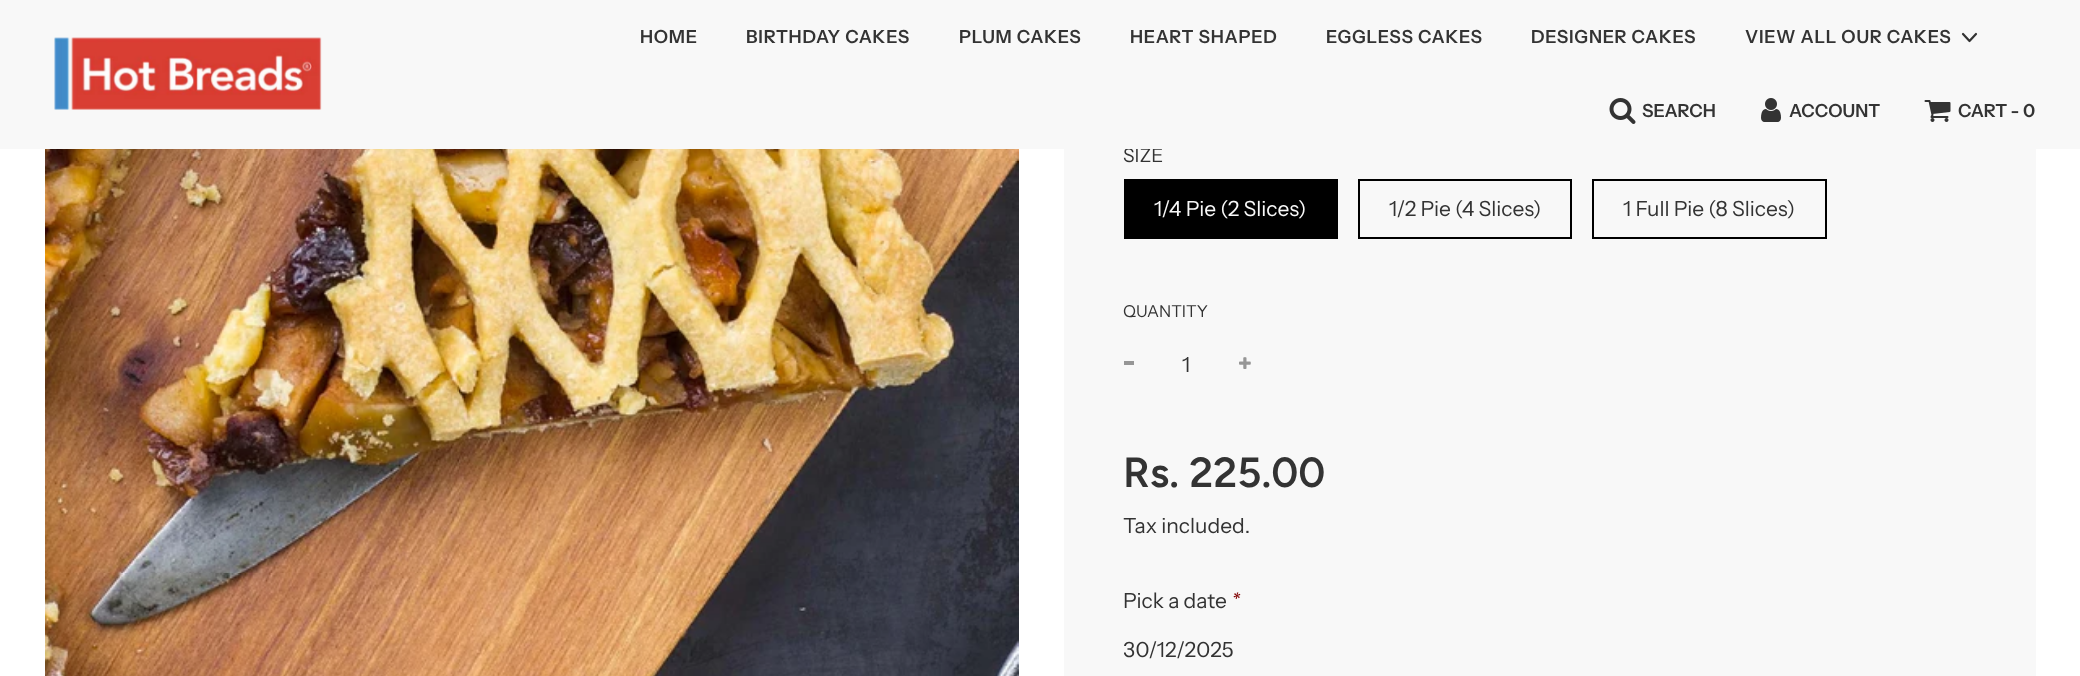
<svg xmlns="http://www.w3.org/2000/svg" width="2080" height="676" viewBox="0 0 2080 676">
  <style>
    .t1 { font: 19px Instrument Sans; fill: #333; }
    .t2 { font: 600 18px Instrument Sans; letter-spacing: 0.75px; fill: #333; }
    .t3 { font: 600 18px Instrument Sans; fill: #333; }
    .t4 { font: 21px Instrument Sans; fill: #f8f8f8; }
    .t5 { font: 21px Instrument Sans; fill: #333; }
    .t6 { font: 16.5px Instrument Sans; fill: #333; }
    .t7 { font: 600 42px Figtree; fill: #333; }
    .t8 { font: italic 21px Instrument Sans; fill: #800000; }
  </style>
  <defs>
    <clipPath id="clip1"><rect x="1124" y="633" width="273" height="33"/></clipPath>
  </defs>
  <rect width="100%" height="100%" fill="#fff"/>
  <rect x="1064" y="149" width="972" height="527" fill="#f8f8f8"/>
  <text x="1123" y="162" class="t1">SIZE</text>
  <rect x="0" y="0" width="2080" height="149" fill="#f8f8f8"/>
  <image x="54" y="37" width="268" height="73" href="images/1.png"/>
  <text x="640" y="43" class="t2">HOME</text>
  <text x="746" y="43" class="t2">BIRTHDAY CAKES</text>
  <text x="959" y="43" class="t2">PLUM CAKES</text>
  <text x="1130" y="43" class="t2">HEART SHAPED</text>
  <text x="1326" y="43" class="t2">EGGLESS CAKES</text>
  <text x="1531" y="43" class="t2">DESIGNER CAKES</text>
  <text x="1745" y="43" class="t2">VIEW ALL OUR CAKES</text>
  <path d="M1963 34L1969.5 41L1976 34" fill="none" stroke="#333" stroke-width="2.2" stroke-linecap="round" stroke-linejoin="round"/>
  <image x="1609" y="98" width="27" height="26" href="images/2.png"/>
  <text x="1642" y="117" class="t3">SEARCH</text>
  <image x="1761" y="98" width="20" height="24" href="images/3.png"/>
  <text x="1789" y="117" class="t3">ACCOUNT</text>
  <image x="1924" y="100" width="27" height="22" href="images/4.png"/>
  <text x="1958" y="117" class="t3">CART - 0</text>
  <image x="45" y="149" width="974" height="527" href="images/5.png"/>
  <rect x="1124" y="179" width="214" height="60" fill="#000"/>
  <text x="1154" y="216" class="t4">1/4 Pie (2 Slices)</text>
  <rect x="1359" y="180" width="212" height="58" fill="none" stroke="#000" stroke-width="2"/>
  <text x="1389" y="216" class="t5">1/2 Pie (4 Slices)</text>
  <rect x="1593" y="180" width="233" height="58" fill="none" stroke="#000" stroke-width="2"/>
  <text x="1623" y="216" class="t5">1 Full Pie (8 Slices)</text>
  <text x="1123" y="317" class="t6">QUANTITY</text>
  <rect x="1124" y="361" width="10" height="4" fill="#969696"/>
  <text x="1182" y="372" class="t5">1</text>
  <image x="1239" y="357" width="12" height="12" href="images/6.png"/>
  <text x="1123" y="487" class="t7">Rs. 225.00</text>
  <text x="1123" y="533" class="t5">Tax included.</text>
  <text x="1123" y="608" class="t5">Pick a date</text>
  <text x="1231" y="608" class="t8">*</text>
  <g clip-path="url(#clip1)">
    <text x="1123" y="657" class="t5">30/12/2025</text>
  </g>
</svg>
